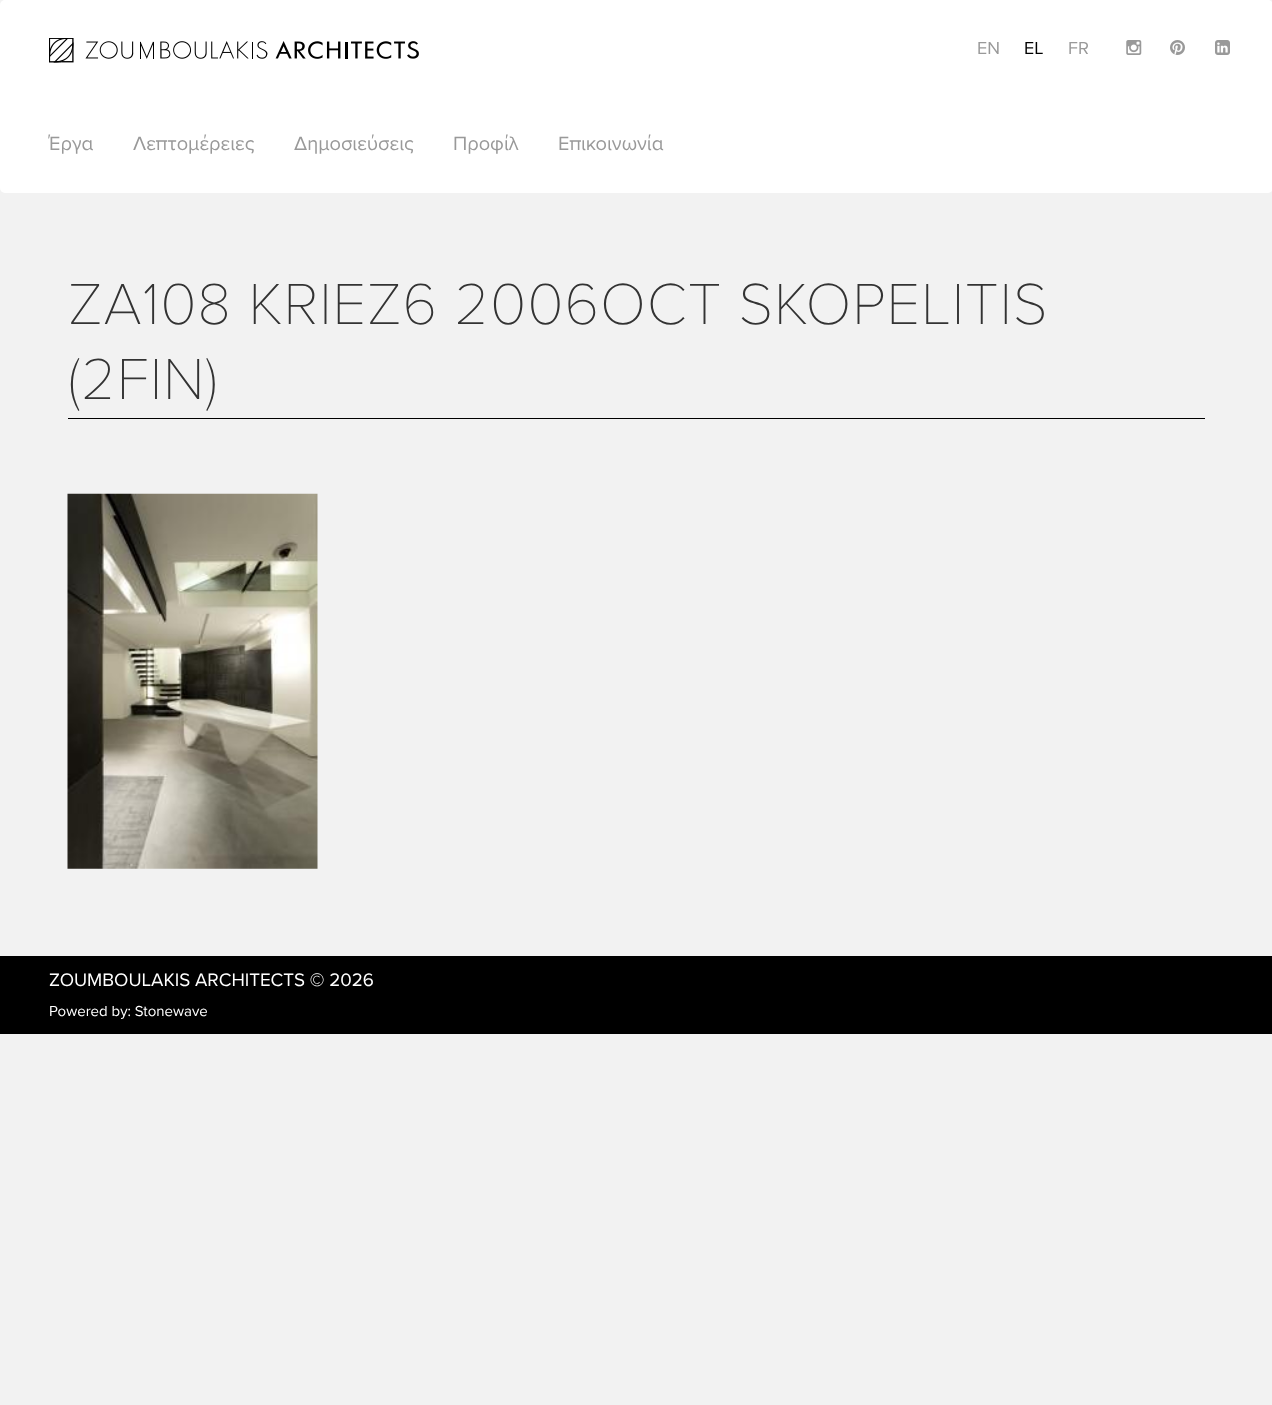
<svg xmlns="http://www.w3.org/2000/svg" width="1272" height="1405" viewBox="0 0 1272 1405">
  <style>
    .t1 { font: 18px Proxima Nova; fill: #999; }
    .t2 { font: 18px Proxima Nova; fill: #000; }
    .t3 { font: 20px Proxima Nova; fill: #999; }
    .t4 { font: 100 60px Proxima Nova; letter-spacing: 0.9px; fill: #333; }
    .t5 { font: 18.75px Proxima Nova; fill: #fff; }
    .t6 { font: 15px Proxima Nova; fill: #fff; }
  </style>
  <rect width="100%" height="100%" fill="#f2f2f2"/>
  <rect x="0" y="0" width="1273" height="193" rx="5" fill="#fff"/>
  <image x="49" y="38" width="370" height="25" href="images/1.png"/>
  <text x="977" y="54" class="t1">EN</text>
  <text x="1024" y="54" class="t2">EL</text>
  <text x="1068" y="54" class="t1">FR</text>
  <image x="1126" y="40" width="16" height="15" href="images/2.png"/>
  <image x="1170" y="40" width="15" height="15" href="images/3.png"/>
  <image x="1215" y="40" width="15" height="15" href="images/4.png"/>
  <text x="49" y="150" class="t3">Έργα</text>
  <text x="133" y="150" class="t3">Λεπτομέρειες</text>
  <text x="294" y="150" class="t3">Δημοσιεύσεις</text>
  <text x="453" y="150" class="t3">Προφίλ</text>
  <text x="558" y="150" class="t3">Επικοινωνία</text>
  <rect x="68" y="418" width="1137" height="1" fill="#000"/>
  <text x="68" y="324" class="t4">ZA108 KRIEZ6 2006OCT SKOPELITIS</text>
  <text x="68" y="399" class="t4">(2FIN)</text>
  <image x="67" y="493" width="251" height="376" href="images/5.png"/>
  <rect x="0" y="956" width="1272" height="78" fill="#000"/>
  <text x="49" y="986" class="t5">ZOUMBOULAKIS ARCHITECTS © 2026</text>
  <text x="49" y="1016" class="t6">Powered by: Stonewave</text>
</svg>
